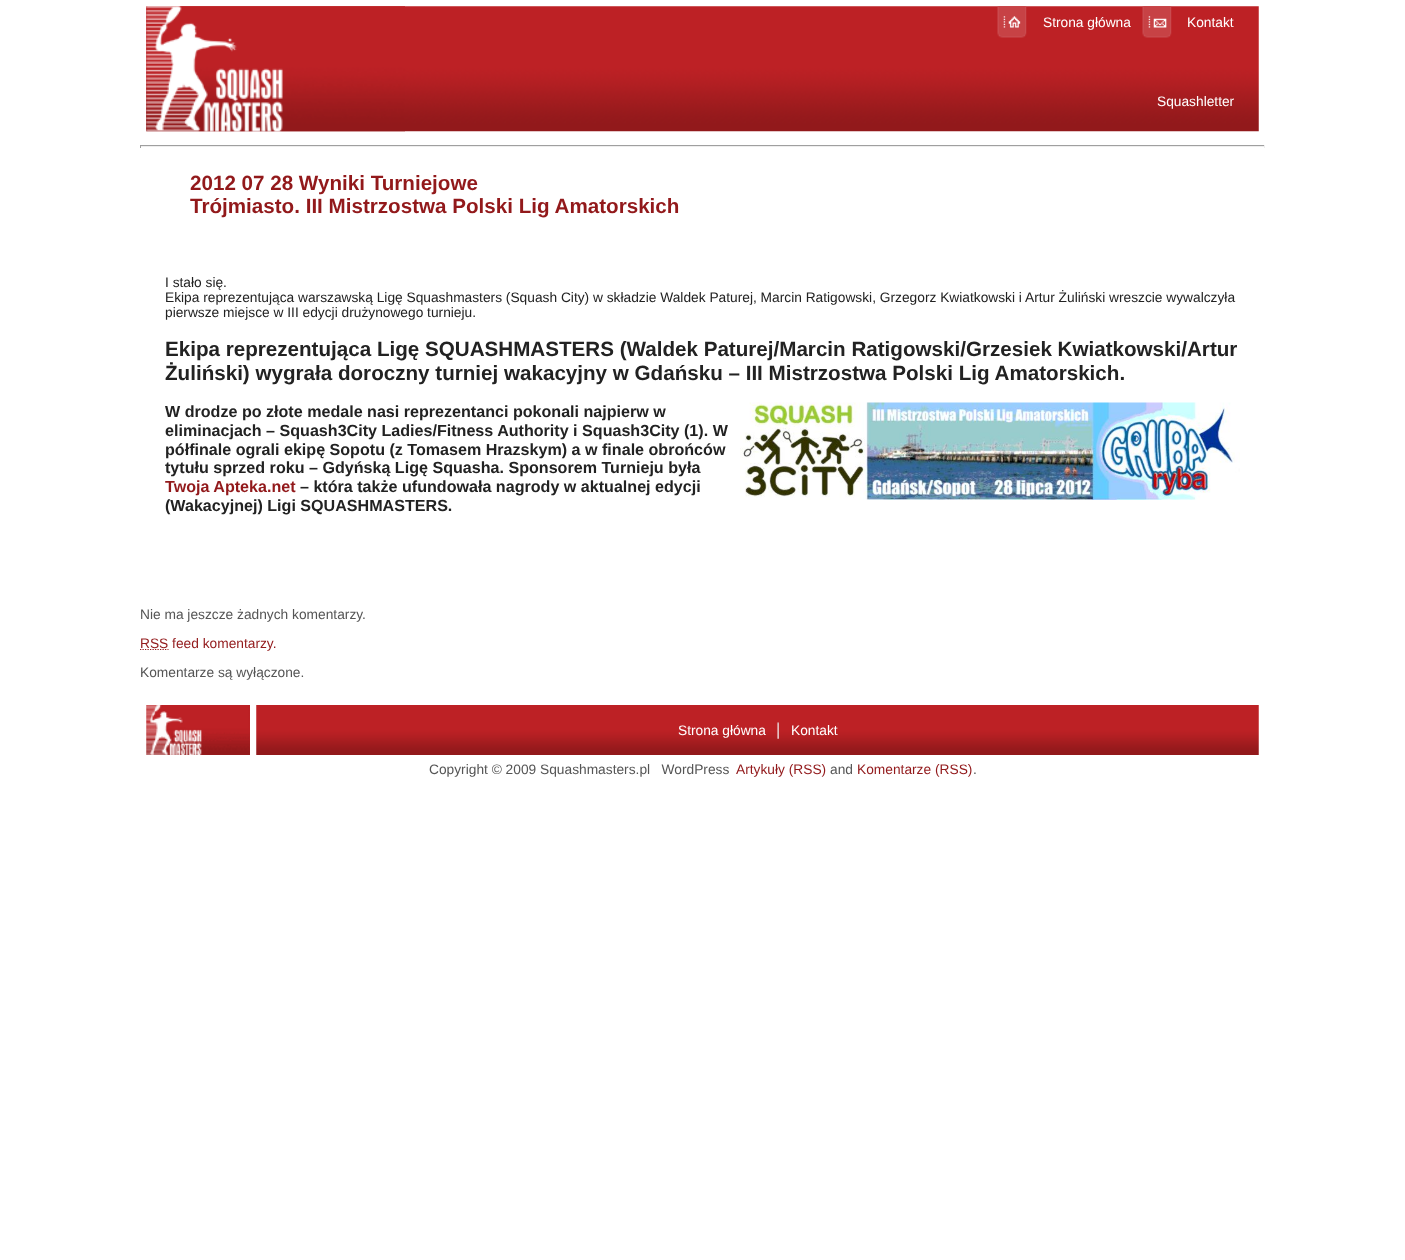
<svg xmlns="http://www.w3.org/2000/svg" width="1405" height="1260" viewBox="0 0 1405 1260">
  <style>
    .t1 { font: 13.75px Liberation Sans; fill: #fff; }
    .t2 { font: bold 20.62px Liberation Sans; fill: #92191b; }
    .t3 { font: 13.75px Liberation Sans; fill: #222; }
    .t4 { font: bold 20.62px Liberation Sans; fill: #222; }
    .t5 { font: bold 16.1px Liberation Sans; fill: #222; }
    .t6 { font: bold 16.1px Liberation Sans; fill: #92191b; }
    .t7 { font: 13.75px Liberation Sans; fill: #555; }
    .t8 { font: 13.75px Liberation Sans; fill: #92191b; }
  </style>
  <rect width="100%" height="100%" fill="#fff"/>
  <image x="146" y="6" width="1113" height="126" href="images/1.png"/>
  <image x="146" y="6" width="259" height="126" href="images/2.png"/>
  <image x="997" y="6" width="30" height="32" href="images/3.png"/>
  <text x="1043" y="27" class="t1">Strona główna</text>
  <image x="1142" y="6" width="30" height="32" href="images/4.png"/>
  <text x="1187" y="27" class="t1">Kontakt</text>
  <text x="1157" y="106" class="t1">Squashletter</text>
  <rect x="140" y="145" width="1125" height="1" fill="#9f9f9f"/>
  <rect x="1264" y="145" width="1" height="3" fill="#eee"/>
  <rect x="140" y="146" width="1125" height="1" fill="#eee"/>
  <rect x="140" y="145" width="1" height="3" fill="#9f9f9f"/>
  <text x="190" y="190" class="t2">2012 07 28 Wyniki Turniejowe</text>
  <text x="190" y="213" class="t2">Trójmiasto. III Mistrzostwa Polski Lig Amatorskich</text>
  <text x="165" y="287" class="t3">I stało się.</text>
  <text x="165" y="302" class="t3">Ekipa reprezentująca warszawską Ligę Squashmasters (Squash City) w składzie Waldek Paturej, Marcin Ratigowski, Grzegorz Kwiatkowski i Artur Żuliński wreszcie wywalczyła</text>
  <text x="165" y="317" class="t3">pierwsze miejsce w III edycji drużynowego turnieju.</text>
  <text x="165" y="356" class="t4">Ekipa reprezentująca Ligę SQUASHMASTERS (Waldek Paturej/Marcin Ratigowski/Grzesiek Kwiatkowski/Artur</text>
  <text x="165" y="380" class="t4">Żuliński) wygrała doroczny turniej wakacyjny w Gdańsku – III Mistrzostwa Polski Lig Amatorskich.</text>
  <text x="165" y="417" class="t5">W drodze po złote medale nasi reprezentanci pokonali najpierw w</text>
  <text x="165" y="436" class="t5">eliminacjach – Squash3City Ladies/Fitness Authority i Squash3City (1). W</text>
  <text x="165" y="455" class="t5">półfinale ograli ekipę Sopotu (z Tomasem Hrazskym) a w finale obrońców</text>
  <text x="165" y="473" class="t5">tytułu sprzed roku – Gdyńską Ligę Squasha. Sponsorem Turnieju była</text>
  <text x="165" y="492" class="t6">Twoja Apteka.net</text>
  <text x="300" y="492" class="t5">– która także ufundowała nagrody w aktualnej edycji</text>
  <text x="165" y="511" class="t5">(Wakacyjnej) Ligi SQUASHMASTERS.</text>
  <image x="740" y="402" width="500" height="98" href="images/5.png"/>
  <text x="140" y="619" class="t7">Nie ma jeszcze żadnych komentarzy.</text>
  <path d="M140 649.5H168.5" fill="none" stroke="#92191b" stroke-width="1.2" stroke-dasharray="1.25 1.25"/>
  <text x="140" y="648" class="t8">RSS feed komentarzy.</text>
  <text x="140" y="677" class="t7">Komentarze są wyłączone.</text>
  <image x="146" y="705" width="104" height="50" href="images/6.png"/>
  <image x="256" y="705" width="1003" height="50" href="images/7.png"/>
  <text x="678" y="735" class="t1">Strona główna</text>
  <image x="777" y="722" width="2" height="17" href="images/8.png"/>
  <text x="791" y="735" class="t1">Kontakt</text>
  <text x="429" y="774" class="t7" xml:space="preserve">Copyright © 2009 Squashmasters.pl   WordPress</text>
  <text x="736" y="774" class="t8">Artykuły (RSS)</text>
  <text x="830" y="774" class="t7">and</text>
  <text x="857" y="774" class="t8">Komentarze (RSS)</text>
  <text x="973" y="774" class="t7">.</text>
</svg>
